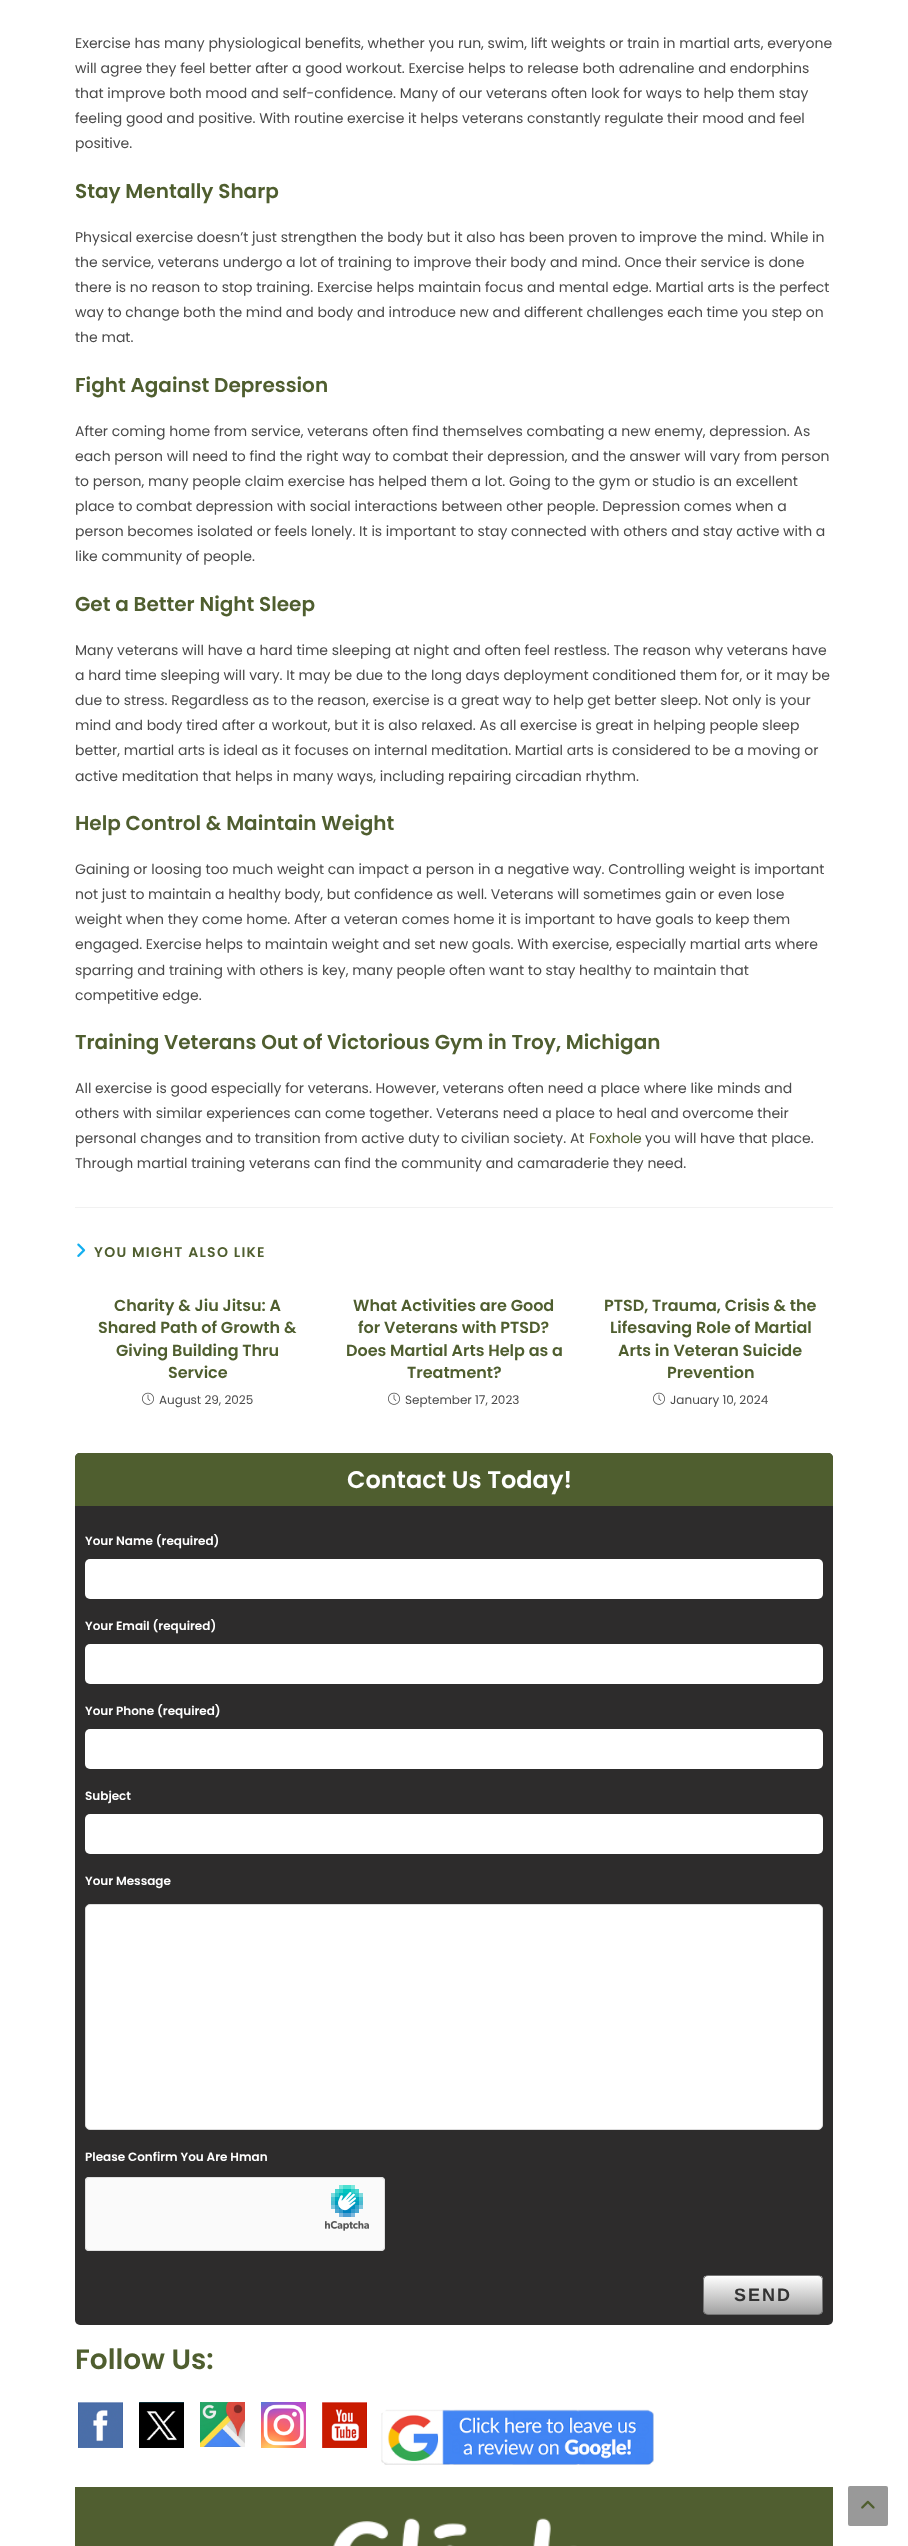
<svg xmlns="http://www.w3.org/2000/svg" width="908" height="2546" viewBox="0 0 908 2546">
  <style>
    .t1 { font: 14px Poppins; fill: #4a4a4a; }
    .t2 { font: 600 20px Poppins; fill: #4f5e2f; }
    .t3 { font: 14px Poppins; fill: #4f5e2f; }
    .t4 { font: 600 14px Poppins; letter-spacing: 1.25px; fill: #4f5e2f; }
    .t5 { font: 600 16px Poppins; fill: #4f5e2f; }
    .t6 { font: 12px Poppins; fill: #4a4a4a; }
    .t7 { font: 600 24px Poppins; fill: #fff; }
    .t8 { font: 600 12px Poppins; fill: #fff; }
    .t9 { font: bold 18px Liberation Sans; letter-spacing: 2px; fill: #333; }
    .t10 { font: 600 28px Poppins; fill: #4f5e2f; }
  </style>
  <defs>
    <clipPath id="clip1"><rect x="703" y="2275" width="120" height="40" rx="5"/></clipPath>
    <linearGradient id="g1" gradientUnits="userSpaceOnUse" x1="763" y1="2276" x2="763" y2="2314"><stop offset="0" stop-color="#fff"/><stop offset="1" stop-color="#a1a1a1"/></linearGradient>
  </defs>
  <rect width="100%" height="100%" fill="#fff"/>
  <text x="75" y="48" class="t1">Exercise has many physiological benefits, whether you run, swim, lift weights or train in martial arts, everyone</text>
  <text x="75" y="73" class="t1">will agree they feel better after a good workout. Exercise helps to release both adrenaline and endorphins</text>
  <text x="75" y="98" class="t1">that improve both mood and self-confidence. Many of our veterans often look for ways to help them stay</text>
  <text x="75" y="123" class="t1">feeling good and positive. With routine exercise it helps veterans constantly regulate their mood and feel</text>
  <text x="75" y="148" class="t1">positive.</text>
  <text x="75" y="198" class="t2">Stay Mentally Sharp</text>
  <text x="75" y="242" class="t1">Physical exercise doesn’t just strengthen the body but it also has been proven to improve the mind. While in</text>
  <text x="75" y="267" class="t1">the service, veterans undergo a lot of training to improve their body and mind. Once their service is done</text>
  <text x="75" y="292" class="t1">there is no reason to stop training. Exercise helps maintain focus and mental edge. Martial arts is the perfect</text>
  <text x="75" y="317" class="t1">way to change both the mind and body and introduce new and different challenges each time you step on</text>
  <text x="75" y="342" class="t1">the mat.</text>
  <text x="75" y="392" class="t2">Fight Against Depression</text>
  <text x="75" y="436" class="t1">After coming home from service, veterans often find themselves combating a new enemy, depression. As</text>
  <text x="75" y="461" class="t1">each person will need to find the right way to combat their depression, and the answer will vary from person</text>
  <text x="75" y="486" class="t1">to person, many people claim exercise has helped them a lot. Going to the gym or studio is an excellent</text>
  <text x="75" y="511" class="t1">place to combat depression with social interactions between other people. Depression comes when a</text>
  <text x="75" y="536" class="t1">person becomes isolated or feels lonely. It is important to stay connected with others and stay active with a</text>
  <text x="75" y="561" class="t1">like community of people.</text>
  <text x="75" y="611" class="t2">Get a Better Night Sleep</text>
  <text x="75" y="655" class="t1">Many veterans will have a hard time sleeping at night and often feel restless. The reason why veterans have</text>
  <text x="75" y="680" class="t1">a hard time sleeping will vary. It may be due to the long days deployment conditioned them for, or it may be</text>
  <text x="75" y="705" class="t1">due to stress. Regardless as to the reason, exercise is a great way to help get better sleep. Not only is your</text>
  <text x="75" y="730" class="t1">mind and body tired after a workout, but it is also relaxed. As all exercise is great in helping people sleep</text>
  <text x="75" y="755" class="t1">better, martial arts is ideal as it focuses on internal meditation. Martial arts is considered to be a moving or</text>
  <text x="75" y="781" class="t1">active meditation that helps in many ways, including repairing circadian rhythm.</text>
  <text x="75" y="830" class="t2">Help Control &amp; Maintain Weight</text>
  <text x="75" y="874" class="t1">Gaining or loosing too much weight can impact a person in a negative way. Controlling weight is important</text>
  <text x="75" y="899" class="t1">not just to maintain a healthy body, but confidence as well. Veterans will sometimes gain or even lose</text>
  <text x="75" y="924" class="t1">weight when they come home. After a veteran comes home it is important to have goals to keep them</text>
  <text x="75" y="949" class="t1">engaged. Exercise helps to maintain weight and set new goals. With exercise, especially martial arts where</text>
  <text x="75" y="975" class="t1">sparring and training with others is key, many people often want to stay healthy to maintain that</text>
  <text x="75" y="1000" class="t1">competitive edge.</text>
  <text x="75" y="1049" class="t2">Training Veterans Out of Victorious Gym in Troy, Michigan</text>
  <text x="75" y="1093" class="t1">All exercise is good especially for veterans. However, veterans often need a place where like minds and</text>
  <text x="75" y="1118" class="t1">others with similar experiences can come together. Veterans need a place to heal and overcome their</text>
  <text x="75" y="1143" class="t1">personal changes and to transition from active duty to civilian society. At</text>
  <text x="589" y="1143" class="t3">Foxhole</text>
  <text x="645" y="1143" class="t1">you will have that place.</text>
  <text x="75" y="1168" class="t1">Through martial training veterans can find the community and camaraderie they need.</text>
  <rect x="75" y="1207" width="758" height="1" fill="#f1f1f1"/>
  <image x="77" y="1243" width="9" height="14" href="images/1.png"/>
  <text x="94" y="1257" class="t4">YOU MIGHT ALSO LIKE</text>
  <text x="114" y="1311" class="t5">Charity &amp; Jiu Jitsu: A</text>
  <text x="98" y="1333" class="t5">Shared Path of Growth &amp;</text>
  <text x="116" y="1356" class="t5">Giving Building Thru</text>
  <text x="168" y="1378" class="t5">Service</text>
  <image x="142" y="1392" width="12" height="13" href="images/2.png"/>
  <text x="159" y="1404" class="t6">August 29, 2025</text>
  <text x="353" y="1311" class="t5">What Activities are Good</text>
  <text x="358" y="1333" class="t5">for Veterans with PTSD?</text>
  <text x="346" y="1356" class="t5">Does Martial Arts Help as a</text>
  <text x="407" y="1378" class="t5">Treatment?</text>
  <image x="388" y="1392" width="12" height="13" href="images/2.png"/>
  <text x="405" y="1404" class="t6">September 17, 2023</text>
  <text x="604" y="1311" class="t5">PTSD, Trauma, Crisis &amp; the</text>
  <text x="610" y="1333" class="t5">Lifesaving Role of Martial</text>
  <text x="618" y="1356" class="t5">Arts in Veteran Suicide</text>
  <text x="667" y="1378" class="t5">Prevention</text>
  <image x="653" y="1392" width="12" height="13" href="images/2.png"/>
  <text x="670" y="1404" class="t6">January 10, 2024</text>
  <rect x="75" y="1453" width="758" height="872" rx="5" fill="#2d2c2c"/>
  <path d="M80 1453H828C831 1453 833 1455 833 1458V1506H75V1458C75 1455 77 1453 80 1453Z" fill="#4f5e2f"/>
  <text x="347" y="1488" class="t7">Contact Us Today!</text>
  <text x="85" y="1545" class="t8">Your Name (required)</text>
  <rect x="85" y="1559" width="738" height="40" rx="5" fill="#fff"/>
  <text x="85" y="1630" class="t8">Your Email (required)</text>
  <rect x="85" y="1644" width="738" height="40" rx="5" fill="#fff"/>
  <text x="85" y="1715" class="t8">Your Phone (required)</text>
  <rect x="85" y="1729" width="738" height="40" rx="5" fill="#fff"/>
  <text x="85" y="1800" class="t8">Subject</text>
  <rect x="85" y="1814" width="738" height="40" rx="5" fill="#fff"/>
  <text x="85" y="1885" class="t8">Your Message</text>
  <rect x="85.5" y="1904.5" width="737" height="225" rx="4.5" fill="#fff" stroke="#ddd"/>
  <text x="85" y="2161" class="t8">Please Confirm You Are Hman</text>
  <rect x="85" y="2177" width="300" height="74" rx="4" fill="#fafafa"/>
  <image x="325" y="2185" width="44" height="46" href="images/3.png"/>
  <rect x="85.5" y="2177.5" width="299" height="73" rx="3.5" fill="none" stroke="#e0e0e0"/>
  <g clip-path="url(#clip1)">
    <rect x="703" y="2276" width="120" height="38" fill="url(#g1)"/>
  </g>
  <rect x="703.5" y="2275.5" width="119" height="39" rx="4.5" fill="none" stroke="#757575"/>
  <text x="734" y="2301" class="t9">SEND</text>
  <text x="75" y="2369" class="t10">Follow Us:</text>
  <image x="78" y="2402" width="45" height="46" href="images/4.png"/>
  <image x="139" y="2402" width="45" height="46" href="images/5.png"/>
  <image x="200" y="2402" width="45" height="45" href="images/6.png"/>
  <image x="261" y="2402" width="45" height="46" href="images/7.png"/>
  <image x="322" y="2402" width="45" height="46" href="images/8.png"/>
  <image x="381" y="2409" width="273" height="56" href="images/9.png"/>
  <image x="75" y="2487" width="758" height="59" href="images/10.png"/>
  <rect x="848" y="2486" width="40" height="40" rx="2" fill="#999"/>
  <image x="861" y="2500" width="14" height="9" href="images/11.png"/>
</svg>
